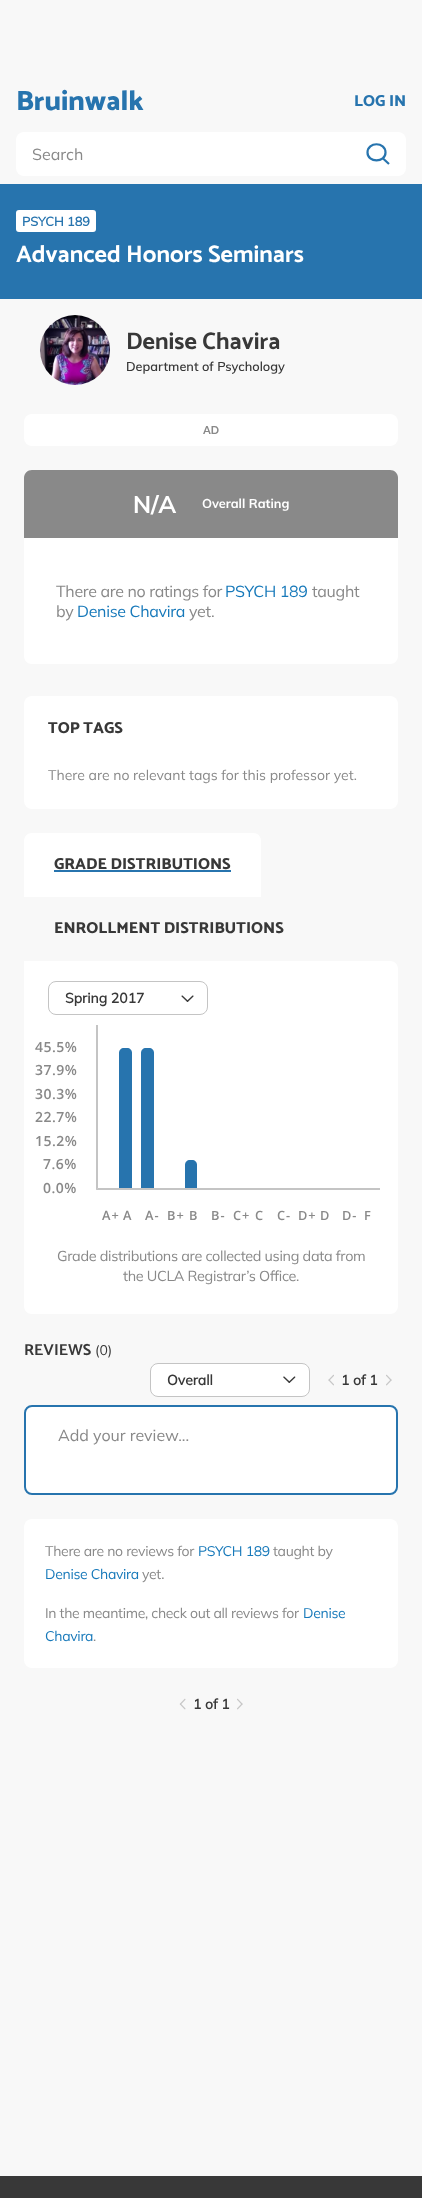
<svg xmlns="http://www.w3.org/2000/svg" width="422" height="2198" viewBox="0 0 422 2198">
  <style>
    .t1 { font: 800 28px Catamaran; fill: #2774ae; }
    .t2 { font: 800 16px Catamaran; fill: #2774ae; }
    .t3 { font: 200 16px Mulish; fill: #898989; }
    .t4 { font: bold 12.75px Mulish; fill: #2774ae; }
    .t5 { font: bold 24px Catamaran; fill: #fff; }
    .t6 { font: bold 24px Catamaran; fill: #383838; }
    .t7 { font: 600 12.75px Muli; fill: #383838; }
    .t8 { font: bold 11px Lato; fill: #898989; }
    .t9 { font: bold 24px Muli; fill: #fff; }
    .t10 { font: bold 12.75px Muli; fill: #fff; }
    .t11 { font: 200 16px Mulish; letter-spacing: -0.3px; fill: #898989; }
    .t12 { font: 200 16px Mulish; letter-spacing: -0.3px; fill: #1779ba; }
    .t13 { font: 800 16px Catamaran; fill: #383838; }
    .t14 { font: 200 14px Mulish; fill: #898989; }
    .t15 { font: bold 14px Mulish; fill: #383838; }
    .t16 { font: 600 14px Open Sans; letter-spacing: 0.5px; fill: #898989; }
    .t17 { font: 600 12.75px Open Sans; letter-spacing: 1px; fill: #898989; }
    .t18 { font: 200 14.4px Mulish; letter-spacing: -0.3px; fill: #898989; }
    .t19 { font: bold 16px Catamaran; fill: #383838; }
    .t20 { font: 200 14px Mulish; fill: #383838; }
    .t21 { font: 200 14px Mulish; letter-spacing: -0.3px; fill: #898989; }
    .t22 { font: 200 14px Mulish; letter-spacing: -0.3px; fill: #1779ba; }
  </style>
  <rect width="100%" height="100%" fill="#f8f8f8"/>
  <text x="16" y="110" class="t1">Bruinwalk</text>
  <text x="354" y="106" class="t2">LOG IN</text>
  <rect x="16" y="132" width="390" height="44" rx="8" fill="#fff"/>
  <text x="32" y="160" class="t3">Search</text>
  <path d="M385.5 152.5C385.5 163 367.5 163 367.5 152.5C367.5 141.5 385.5 141.5 385.5 152.5ZM382.5 158L389 164" fill="none" stroke="#2774ae" stroke-width="2.2"/>
  <rect x="0" y="184" width="422" height="115" fill="#2774ae"/>
  <rect x="16" y="210" width="80" height="22" rx="3" fill="#fff"/>
  <text x="22" y="226" class="t4">PSYCH 189</text>
  <text x="16" y="262" class="t5">Advanced Honors Seminars</text>
  <circle cx="75" cy="350" r="35" fill="#fff"/>
  <image x="40" y="315" width="70" height="70" href="images/1.png"/>
  <text x="126" y="349" class="t6">Denise Chavira</text>
  <text x="126" y="371" class="t7">Department of Psychology</text>
  <rect x="24" y="414" width="374" height="32" rx="8" fill="#fff"/>
  <text x="203" y="434" class="t8">AD</text>
  <path d="M32 470H390C394.5 470 398 473.5 398 478V538H24V478C24 473.5 27.5 470 32 470Z" fill="#898989"/>
  <text x="133" y="513" class="t9">N/A</text>
  <text x="202" y="508" class="t10">Overall Rating</text>
  <path d="M24 538H398V656C398 660.5 394.5 664 390 664H32C27.5 664 24 660.5 24 656Z" fill="#fff"/>
  <text x="56" y="597" class="t11">There are no ratings for</text>
  <text x="225" y="597" class="t12">PSYCH 189</text>
  <text x="312" y="597" class="t11">taught</text>
  <text x="56" y="617" class="t11">by</text>
  <text x="77" y="617" class="t12">Denise Chavira</text>
  <text x="189" y="617" class="t11">yet.</text>
  <rect x="24" y="696" width="374" height="113" rx="8" fill="#fff"/>
  <text x="48" y="733" class="t13">TOP TAGS</text>
  <text x="48" y="780" class="t14">There are no relevant tags for this professor yet.</text>
  <path d="M32 833H253C257.5 833 261 836.5 261 841V897H24V841C24 836.5 27.5 833 32 833Z" fill="#fff"/>
  <text x="54" y="869" class="t13">GRADE DISTRIBUTIONS</text>
  <rect x="54" y="870" width="177" height="2" fill="#2774ae"/>
  <text x="54" y="933" class="t13">ENROLLMENT DISTRIBUTIONS</text>
  <path d="M24 961H390C394.5 961 398 964.5 398 969V1306C398 1310.5 394.5 1314 390 1314H32C27.5 1314 24 1310.5 24 1306Z" fill="#fff"/>
  <rect x="48.5" y="981.5" width="159" height="33" rx="7.5" fill="none" stroke="#c4c4c4"/>
  <text x="65" y="1003" class="t15">Spring 2017</text>
  <image x="181" y="995" width="13" height="7" href="images/2.png"/>
  <text x="35" y="1052" class="t16">45.5%</text>
  <text x="35" y="1075" class="t16">37.9%</text>
  <text x="35" y="1099" class="t16">30.3%</text>
  <text x="35" y="1122" class="t16">22.7%</text>
  <text x="35" y="1146" class="t16">15.2%</text>
  <text x="43" y="1169" class="t16">7.6%</text>
  <text x="43" y="1193" class="t16">0.0%</text>
  <path d="M380 1190H96L98 1188H380Z" fill="#c4c4c4"/>
  <path d="M96 1190V1025H98V1188Z" fill="#89898980"/>
  <path d="M124 1048H127C130 1048 132 1050 132 1053V1188H119V1053C119 1050 121 1048 124 1048Z" fill="#2774ae"/>
  <path d="M146 1048H149C152 1048 154 1050 154 1053V1188H141V1053C141 1050 143 1048 146 1048Z" fill="#2774ae"/>
  <path d="M190 1160H192C195 1160 197 1162 197 1165V1188H185V1165C185 1162 187 1160 190 1160Z" fill="#2774ae"/>
  <text x="102" y="1220" class="t17">A+</text>
  <text x="123" y="1220" class="t17">A</text>
  <text x="145" y="1220" class="t17">A-</text>
  <text x="167" y="1220" class="t17">B+</text>
  <text x="189" y="1220" class="t17">B</text>
  <text x="211" y="1220" class="t17">B-</text>
  <text x="233" y="1220" class="t17">C+</text>
  <text x="255" y="1220" class="t17">C</text>
  <text x="277" y="1220" class="t17">C-</text>
  <text x="298" y="1220" class="t17">D+</text>
  <text x="320" y="1220" class="t17">D</text>
  <text x="342" y="1220" class="t17">D-</text>
  <text x="364" y="1220" class="t17">F</text>
  <text x="57" y="1261" class="t18">Grade distributions are collected using data from</text>
  <text x="123" y="1281" class="t18">the UCLA Registrar’s Office.</text>
  <text x="24" y="1355" class="t19">REVIEWS</text>
  <text x="95" y="1355" class="t20">(0)</text>
  <rect x="150" y="1363" width="160" height="34" rx="8" fill="#fff"/>
  <rect x="150.5" y="1363.5" width="159" height="33" rx="7.5" fill="none" stroke="#89898980"/>
  <text x="167" y="1385" class="t15">Overall</text>
  <image x="283" y="1376" width="13" height="7" href="images/3.png"/>
  <image x="328" y="1374" width="6" height="12" href="images/4.png"/>
  <text x="341" y="1385" class="t15">1 of 1</text>
  <image x="386" y="1374" width="6" height="12" href="images/5.png"/>
  <rect x="25" y="1406" width="372" height="88" rx="7" fill="#fff" stroke="#2774ae" stroke-width="2"/>
  <text x="58" y="1441" class="t3">Add your review...</text>
  <rect x="24" y="1519" width="374" height="149" rx="8" fill="#fff"/>
  <text x="45" y="1556" class="t21">There are no reviews for</text>
  <text x="198" y="1556" class="t22">PSYCH 189</text>
  <text x="273" y="1556" class="t21">taught by</text>
  <text x="45" y="1579" class="t22">Denise Chavira</text>
  <text x="142" y="1579" class="t21">yet.</text>
  <text x="45" y="1618" class="t21">In the meantime, check out all reviews for</text>
  <text x="303" y="1618" class="t22">Denise</text>
  <text x="45" y="1641" class="t22">Chavira</text>
  <text x="93" y="1641" class="t21">.</text>
  <image x="179" y="1698" width="7" height="12" href="images/6.png"/>
  <text x="193" y="1709" class="t15">1 of 1</text>
  <image x="237" y="1698" width="6" height="12" href="images/5.png"/>
  <rect x="0" y="2176" width="422" height="22" fill="#383838"/>
</svg>
